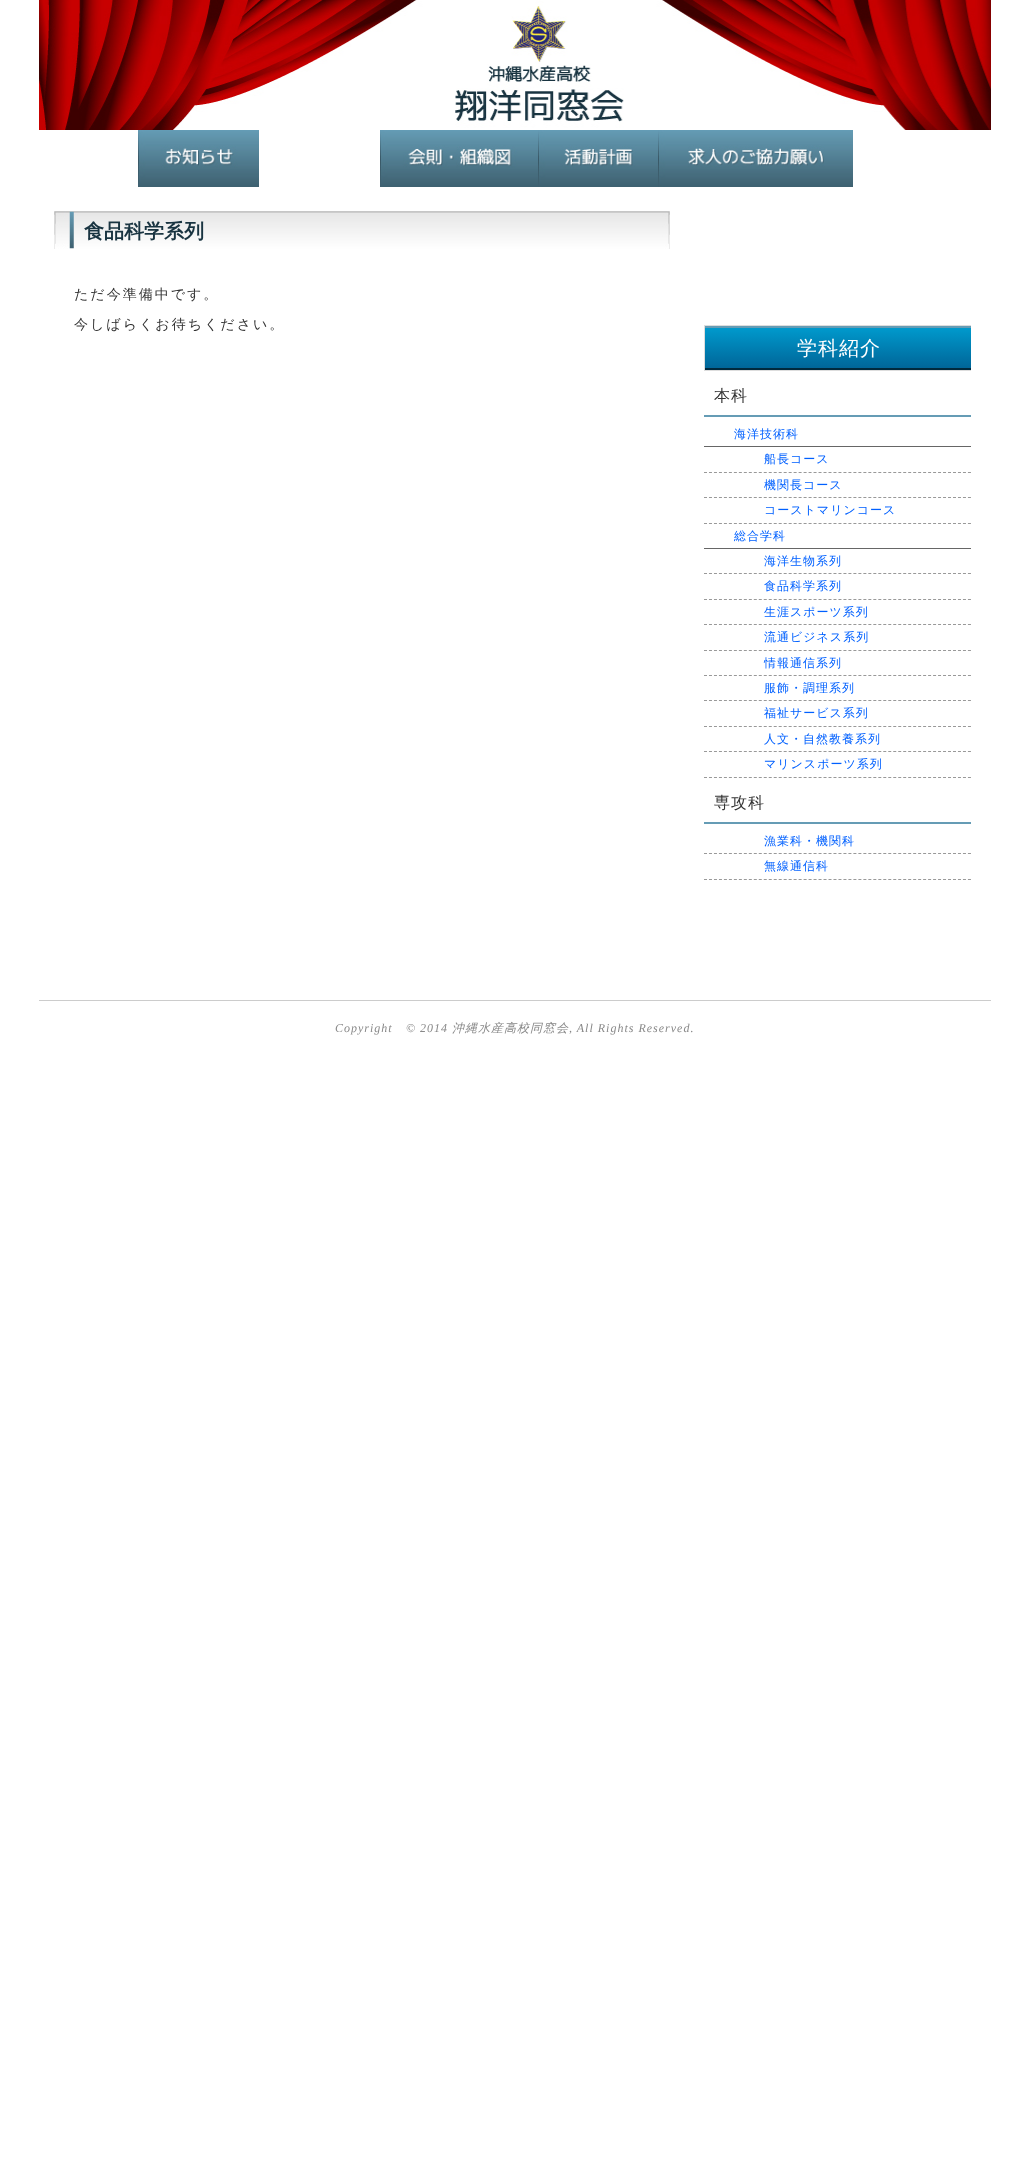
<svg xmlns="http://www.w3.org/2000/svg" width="1030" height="2170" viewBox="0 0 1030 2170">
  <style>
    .t1 { font: bold 20px WenQuanYi Zen Hei; fill: #193441; }
    .t2 { font: 500 14px WenQuanYi Zen Hei; letter-spacing: 2px; fill: #333; }
    .t3 { font: 500 20px WenQuanYi Zen Hei; letter-spacing: 1px; fill: #fff; }
    .t4 { font: 500 16px WenQuanYi Zen Hei; letter-spacing: 1px; fill: #333; }
    .t5 { font: 500 12px WenQuanYi Zen Hei; letter-spacing: 1px; fill: #0060ff; }
    .t6 { font: italic 12px Liberation Serif; letter-spacing: 1px; fill: #888; }
    .t7 { font: italic 500 12px WenQuanYi Zen Hei; letter-spacing: 1px; fill: #888; }
  </style>
  <defs>
    <linearGradient id="g1" gradientUnits="userSpaceOnUse" x1="705" y1="326" x2="705" y2="370"><stop offset="0" stop-color="#659cb5"/><stop offset="0.05" stop-color="#659cb5"/><stop offset="0.05" stop-color="#09c"/><stop offset="0.95" stop-color="#069"/><stop offset="0.95" stop-color="#00293d"/><stop offset="1" stop-color="#00293d"/></linearGradient>
    <clipPath id="clip1"><rect x="704" y="211" width="267" height="669"/></clipPath>
  </defs>
  <rect width="100%" height="100%" fill="#fff"/>
  <image x="39" y="0" width="952" height="130" href="images/1.png"/>
  <image x="138" y="130" width="121" height="57" href="images/2.png"/>
  <image x="380" y="130" width="158" height="57" href="images/3.png"/>
  <image x="538" y="130" width="120" height="57" href="images/4.png"/>
  <image x="658" y="130" width="195" height="57" href="images/5.png"/>
  <image x="54" y="211" width="616" height="38" href="images/6.png"/>
  <text x="84" y="238" class="t1">食品科学系列</text>
  <text x="74" y="299" class="t2">ただ今準備中です。</text>
  <text x="74" y="329" class="t2">今しばらくお待ちください。</text>
  <rect x="705" y="326" width="266" height="44" fill="url(#g1)"/>
  <g clip-path="url(#clip1)">
    <rect x="704.5" y="325.5" width="268" height="45" fill="none" stroke="#ddd"/>
  </g>
  <text x="797" y="355" class="t3">学科紹介</text>
  <rect x="704" y="415" width="267" height="2" fill="#659cb5"/>
  <text x="714" y="401" class="t4">本科</text>
  <rect x="704" y="446" width="267" height="1" fill="#666"/>
  <text x="734" y="438" class="t5">海洋技術科</text>
  <path d="M704 472.5H971" fill="none" stroke="#999" stroke-dasharray="3 1.98"/>
  <text x="764" y="463" class="t5">船長コース</text>
  <path d="M704 497.5H971" fill="none" stroke="#999" stroke-dasharray="3 1.98"/>
  <text x="764" y="489" class="t5">機関長コース</text>
  <path d="M704 523.5H971" fill="none" stroke="#999" stroke-dasharray="3 1.98"/>
  <text x="764" y="514" class="t5">コーストマリンコース</text>
  <rect x="704" y="548" width="267" height="1" fill="#666"/>
  <text x="734" y="540" class="t5">総合学科</text>
  <path d="M704 573.5H971" fill="none" stroke="#999" stroke-dasharray="3 1.98"/>
  <text x="764" y="565" class="t5">海洋生物系列</text>
  <path d="M704 599.5H971" fill="none" stroke="#999" stroke-dasharray="3 1.98"/>
  <text x="764" y="590" class="t5">食品科学系列</text>
  <path d="M704 624.5H971" fill="none" stroke="#999" stroke-dasharray="3 1.98"/>
  <text x="764" y="616" class="t5">生涯スポーツ系列</text>
  <path d="M704 650.5H971" fill="none" stroke="#999" stroke-dasharray="3 1.98"/>
  <text x="764" y="641" class="t5">流通ビジネス系列</text>
  <path d="M704 675.5H971" fill="none" stroke="#999" stroke-dasharray="3 1.98"/>
  <text x="764" y="667" class="t5">情報通信系列</text>
  <path d="M704 700.5H971" fill="none" stroke="#999" stroke-dasharray="3 1.98"/>
  <text x="764" y="692" class="t5">服飾・調理系列</text>
  <path d="M704 726.5H971" fill="none" stroke="#999" stroke-dasharray="3 1.98"/>
  <text x="764" y="717" class="t5">福祉サービス系列</text>
  <path d="M704 751.5H971" fill="none" stroke="#999" stroke-dasharray="3 1.98"/>
  <text x="764" y="743" class="t5">人文・自然教養系列</text>
  <path d="M704 777.5H971" fill="none" stroke="#999" stroke-dasharray="3 1.98"/>
  <text x="764" y="768" class="t5">マリンスポーツ系列</text>
  <rect x="704" y="822" width="267" height="2" fill="#659cb5"/>
  <text x="714" y="808" class="t4">専攻科</text>
  <path d="M704 853.5H971" fill="none" stroke="#999" stroke-dasharray="3 1.98"/>
  <text x="764" y="845" class="t5">漁業科・機関科</text>
  <path d="M704 879.5H971" fill="none" stroke="#999" stroke-dasharray="3 1.98"/>
  <text x="764" y="870" class="t5">無線通信科</text>
  <rect x="39" y="1000" width="952" height="1" fill="#ccc"/>
  <text x="335" y="1032" class="t6">Copyright</text>
  <text x="406" y="1032" class="t6">© 2014</text>
  <text x="452" y="1032" class="t7">沖縄水産高校同窓会</text>
  <text x="569" y="1032" class="t6">, All Rights Reserved.</text>
</svg>
